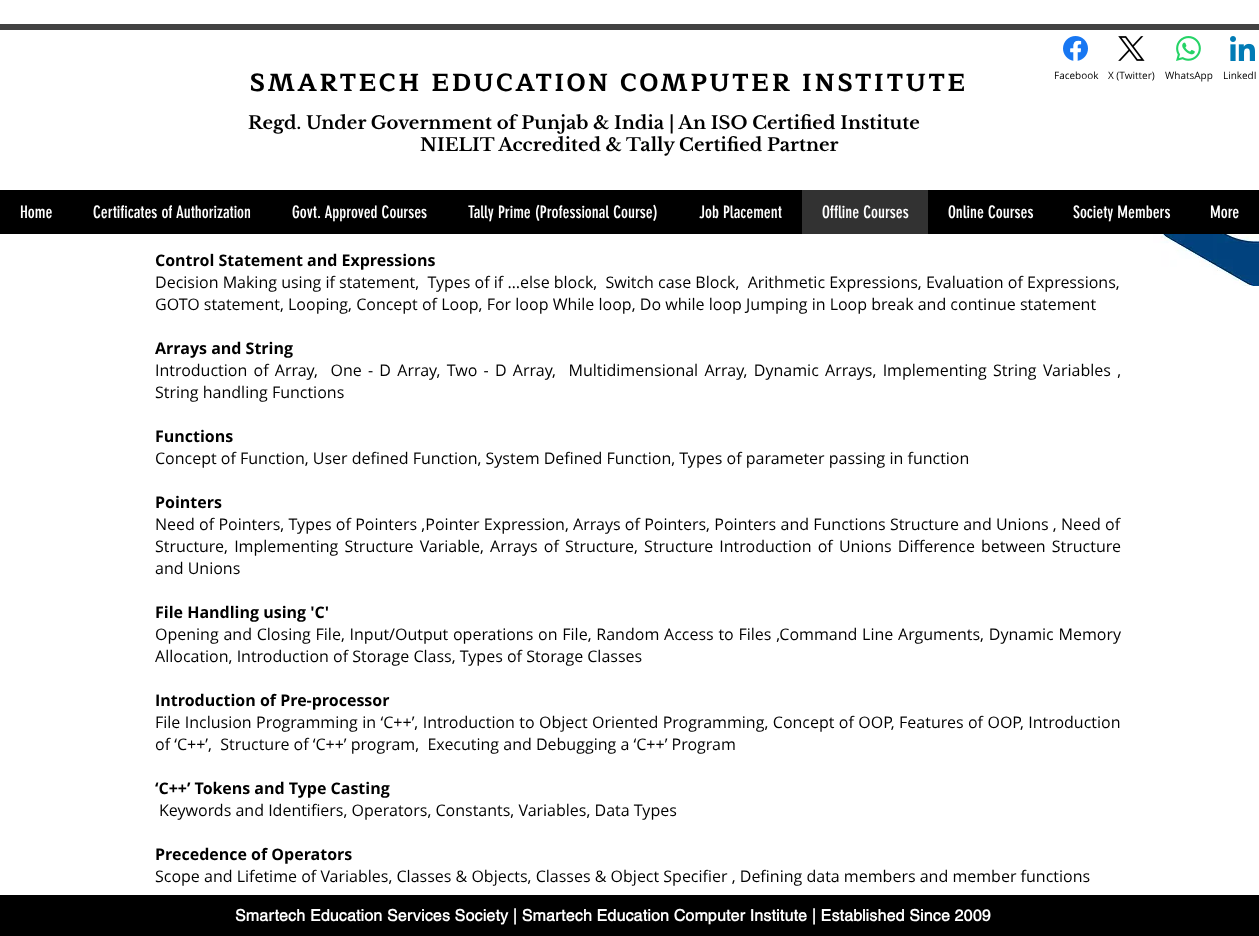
<svg xmlns="http://www.w3.org/2000/svg" width="1259" height="936" viewBox="0 0 1259 936">
  <style>
    .t1 { font: bold 25px Maitree; letter-spacing: 2.5px; fill: #000; }
    .t2 { font: 10px Open Sans; fill: #000; }
    .t3 { font: bold 18px Libre Baskerville; fill: #000; }
    .t4 { font: 17px 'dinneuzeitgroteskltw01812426'; fill: #fff; }
    .t5 { font: bold 16px Open Sans; fill: #000; }
    .t6 { font: 16px Open Sans; fill: #000; }
    .t7 { font: bold 16px helvetica; letter-spacing: 0.15px; fill: #fff; }
  </style>
  <rect width="100%" height="100%" fill="#fff"/>
  <rect x="0" y="24" width="1259" height="6" fill="#424242"/>
  <text x="250" y="91" class="t1">SMARTECH EDUCATION COMPUTER INSTITUTE</text>
  <image x="1063" y="36" width="25" height="25" href="images/1.png"/>
  <text x="1054" y="79" class="t2">Facebook</text>
  <image x="1118" y="36" width="27" height="25" href="images/2.png"/>
  <text x="1108" y="79" class="t2">X (Twitter)</text>
  <image x="1176" y="36" width="25" height="25" href="images/3.png"/>
  <text x="1165" y="79" class="t2">WhatsApp</text>
  <image x="1230" y="36" width="25" height="25" href="images/4.png"/>
  <text x="1223" y="79" class="t2">LinkedI</text>
  <text x="248" y="129" class="t3">Regd. Under Government of Punjab &amp; India | An ISO Certified Institute</text>
  <text x="420" y="151" class="t3">NIELIT Accredited &amp; Tally Certified Partner</text>
  <rect x="0" y="190" width="1259" height="44" fill="#000"/>
  <text x="20" y="218" class="t4">Home</text>
  <text x="93" y="218" class="t4">Certificates of Authorization</text>
  <text x="292" y="218" class="t4">Govt. Approved Courses</text>
  <text x="468" y="218" class="t4">Tally Prime (Professional Course)</text>
  <text x="699" y="218" class="t4">Job Placement</text>
  <rect x="802" y="190" width="126" height="44" fill="#323232"/>
  <text x="822" y="218" class="t4">Offline Courses</text>
  <text x="948" y="218" class="t4">Online Courses</text>
  <text x="1073" y="218" class="t4">Society Members</text>
  <text x="1210" y="218" class="t4">More</text>
  <text x="155" y="266" class="t5">Control Statement and Expressions</text>
  <text x="155" y="288" class="t6" xml:space="preserve">Decision Making using if statement,  Types of if …else block,  Switch case Block,  Arithmetic Expressions, Evaluation of Expressions,</text>
  <text x="155" y="310" class="t6">GOTO statement, Looping, Concept of Loop, For loop While loop, Do while loop Jumping in Loop break and continue statement</text>
  <text x="155" y="354" class="t5">Arrays and String</text>
  <text x="155" y="376" word-spacing="2.1" class="t6" xml:space="preserve">Introduction of Array,  One - D Array, Two - D Array,  Multidimensional Array, Dynamic Arrays, Implementing String Variables ,</text>
  <text x="155" y="398" class="t6">String handling Functions</text>
  <text x="155" y="442" class="t5">Functions</text>
  <text x="155" y="464" class="t6">Concept of Function, User defined Function, System Defined Function, Types of parameter passing in function</text>
  <text x="155" y="508" class="t5">Pointers</text>
  <text x="155" y="530" word-spacing="0.1" class="t6">Need of Pointers, Types of Pointers ,Pointer Expression, Arrays of Pointers, Pointers and Functions Structure and Unions , Need of</text>
  <text x="155" y="552" word-spacing="2" class="t6">Structure, Implementing Structure Variable, Arrays of Structure, Structure Introduction of Unions Difference between Structure</text>
  <text x="155" y="574" class="t6">and Unions</text>
  <text x="155" y="618" class="t5">File Handling using 'C'</text>
  <text x="155" y="640" word-spacing="0.6" class="t6">Opening and Closing File, Input/Output operations on File, Random Access to Files ,Command Line Arguments, Dynamic Memory</text>
  <text x="155" y="662" class="t6">Allocation, Introduction of Storage Class, Types of Storage Classes</text>
  <text x="155" y="706" class="t5">Introduction of Pre-processor</text>
  <text x="155" y="728" word-spacing="0.25" class="t6">File Inclusion Programming in ‘C++’, Introduction to Object Oriented Programming, Concept of OOP, Features of OOP, Introduction</text>
  <text x="155" y="750" class="t6" xml:space="preserve">of ‘C++’,  Structure of ‘C++’ program,  Executing and Debugging a ‘C++’ Program</text>
  <text x="155" y="794" class="t5">‘C++’ Tokens and Type Casting</text>
  <text x="159" y="816" class="t6">Keywords and Identifiers, Operators, Constants, Variables, Data Types</text>
  <text x="155" y="860" class="t5">Precedence of Operators</text>
  <text x="155" y="882" class="t6">Scope and Lifetime of Variables, Classes &amp; Objects, Classes &amp; Object Specifier , Defining data members and member functions</text>
  <image x="1153" y="234" width="106" height="52" href="images/5.png"/>
  <rect x="0" y="895" width="1259" height="41" fill="#000"/>
  <text x="235" y="921" class="t7">Smartech Education Services Society | Smartech Education Computer Institute | Established Since 2009</text>
</svg>
